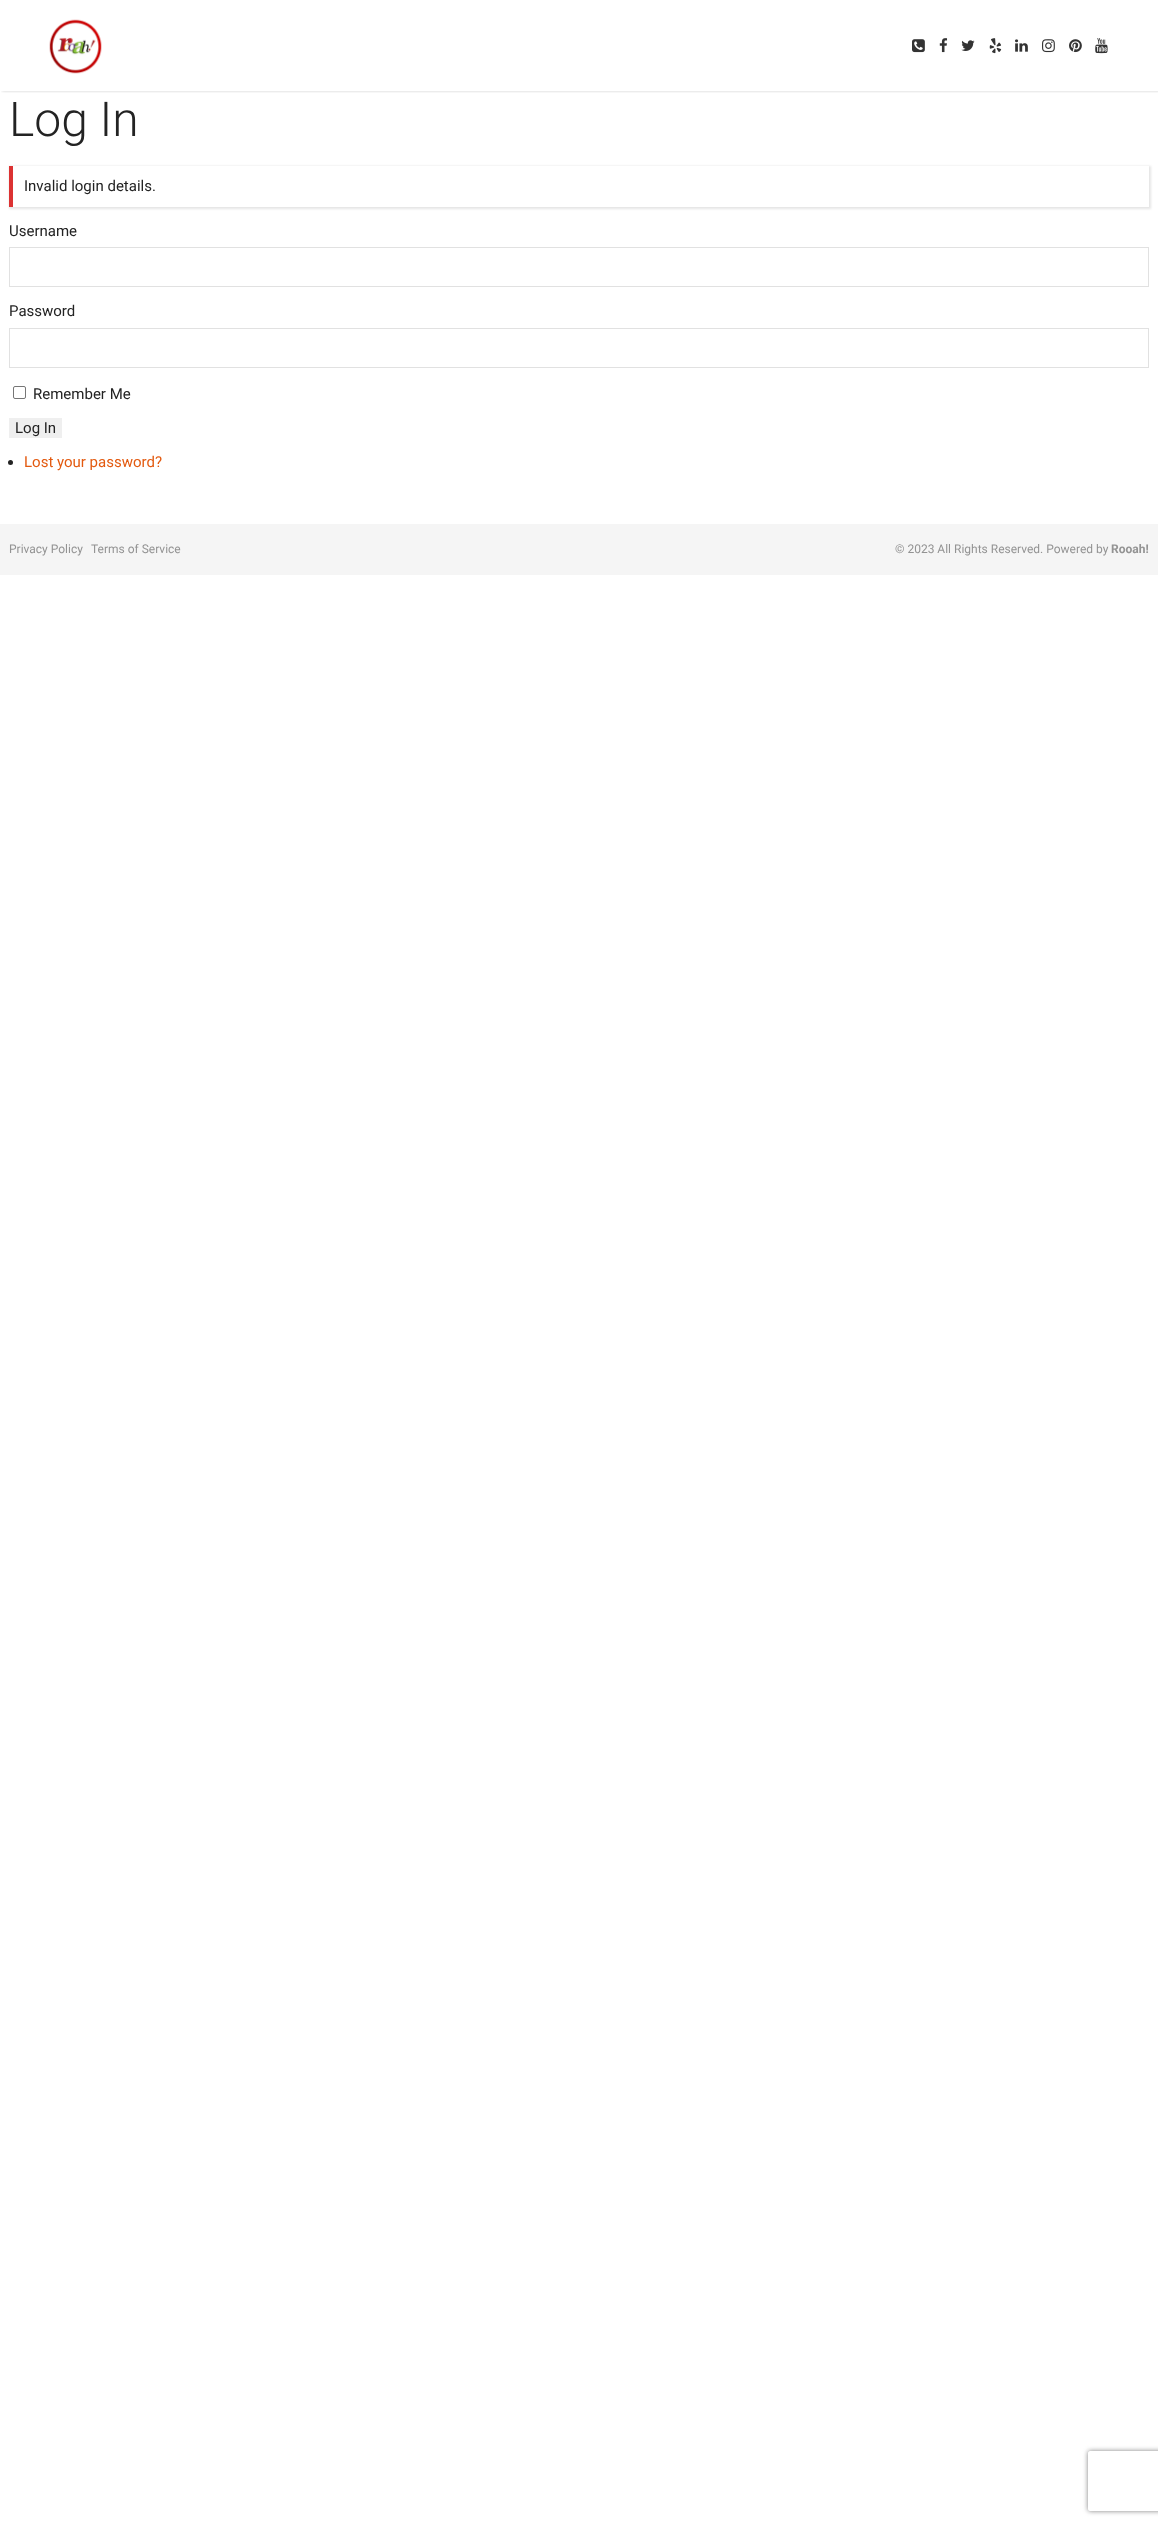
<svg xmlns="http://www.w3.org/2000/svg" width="1158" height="2525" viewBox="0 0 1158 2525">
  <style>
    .t1 { font: 300 48px Roboto; fill: #232323; }
    .t2 { font: 15px Roboto; fill: #232323; }
    .t3 { font: 15px Roboto; fill: #e35a10; }
    .t4 { font: 12px Roboto; fill: #939393; }
    .t5 { font: bold 12px Roboto; fill: #939393; }
  </style>
  <defs>
    <clipPath id="clip1"><rect x="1" y="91" width="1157" height="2"/></clipPath>
    <clipPath id="clip2"><path d="M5 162H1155V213H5ZM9 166H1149V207H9Z" clip-rule="evenodd"/></clipPath>
    <clipPath id="clip3"><path d="M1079 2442H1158V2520H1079ZM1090 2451H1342C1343 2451 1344 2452 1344 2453V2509C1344 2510 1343 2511 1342 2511H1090C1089 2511 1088 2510 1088 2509V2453C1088 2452 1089 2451 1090 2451Z" clip-rule="evenodd"/></clipPath>
  </defs>
  <rect width="100%" height="100%" fill="#fff"/>
  <g clip-path="url(#clip1)">
    <rect x="2" y="0" width="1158" height="91" fill="#00000033" filter="blur(1.5px)"/>
  </g>
  <image x="49" y="19" width="53" height="55" href="images/1.png"/>
  <image x="912" y="39" width="13" height="14" href="images/2.png"/>
  <image x="939" y="38" width="9" height="15" href="images/3.png"/>
  <image x="961" y="40" width="14" height="11" href="images/4.png"/>
  <image x="989" y="38" width="13" height="16" href="images/5.png"/>
  <image x="1015" y="39" width="13" height="13" href="images/6.png"/>
  <image x="1042" y="39" width="13" height="14" href="images/7.png"/>
  <image x="1069" y="39" width="13" height="14" href="images/8.png"/>
  <image x="1095" y="38" width="13" height="16" href="images/9.png"/>
  <text x="9" y="136" class="t1">Log In</text>
  <g clip-path="url(#clip2)">
    <rect x="9" y="166" width="1142" height="43" fill="#0000001a" filter="blur(1px)"/>
  </g>
  <rect x="9" y="166" width="4" height="41" fill="#dc3232"/>
  <text x="24" y="191" class="t2">Invalid login details.</text>
  <text x="9" y="236" class="t2">Username</text>
  <rect x="9.5" y="247.5" width="1139" height="39" fill="none" stroke="#e1e1e1"/>
  <text x="9" y="316" class="t2">Password</text>
  <rect x="9.5" y="328.5" width="1139" height="39" fill="none" stroke="#e1e1e1"/>
  <rect x="13.5" y="386.5" width="12" height="12" rx="1.5" fill="none" stroke="#767676"/>
  <text x="33" y="399" class="t2">Remember Me</text>
  <rect x="9" y="418" width="53" height="20" fill="#efefef"/>
  <text x="15" y="433" class="t2">Log In</text>
  <circle cx="10.5" cy="462.5" r="2.5" fill="#232323"/>
  <text x="24" y="467" class="t3">Lost your password?</text>
  <rect x="0" y="524" width="1158" height="51" fill="#f5f5f5"/>
  <text x="9" y="553" class="t4">Privacy Policy</text>
  <text x="91" y="553" class="t4">Terms of Service</text>
  <text x="895" y="553" class="t4">© 2023 All Rights Reserved. Powered by</text>
  <text x="1111" y="553" class="t5">Rooah!</text>
  <g clip-path="url(#clip3)">
    <rect x="1088" y="2451" width="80" height="60" rx="2" fill="#808080" filter="blur(2.5px)"/>
  </g>
</svg>
